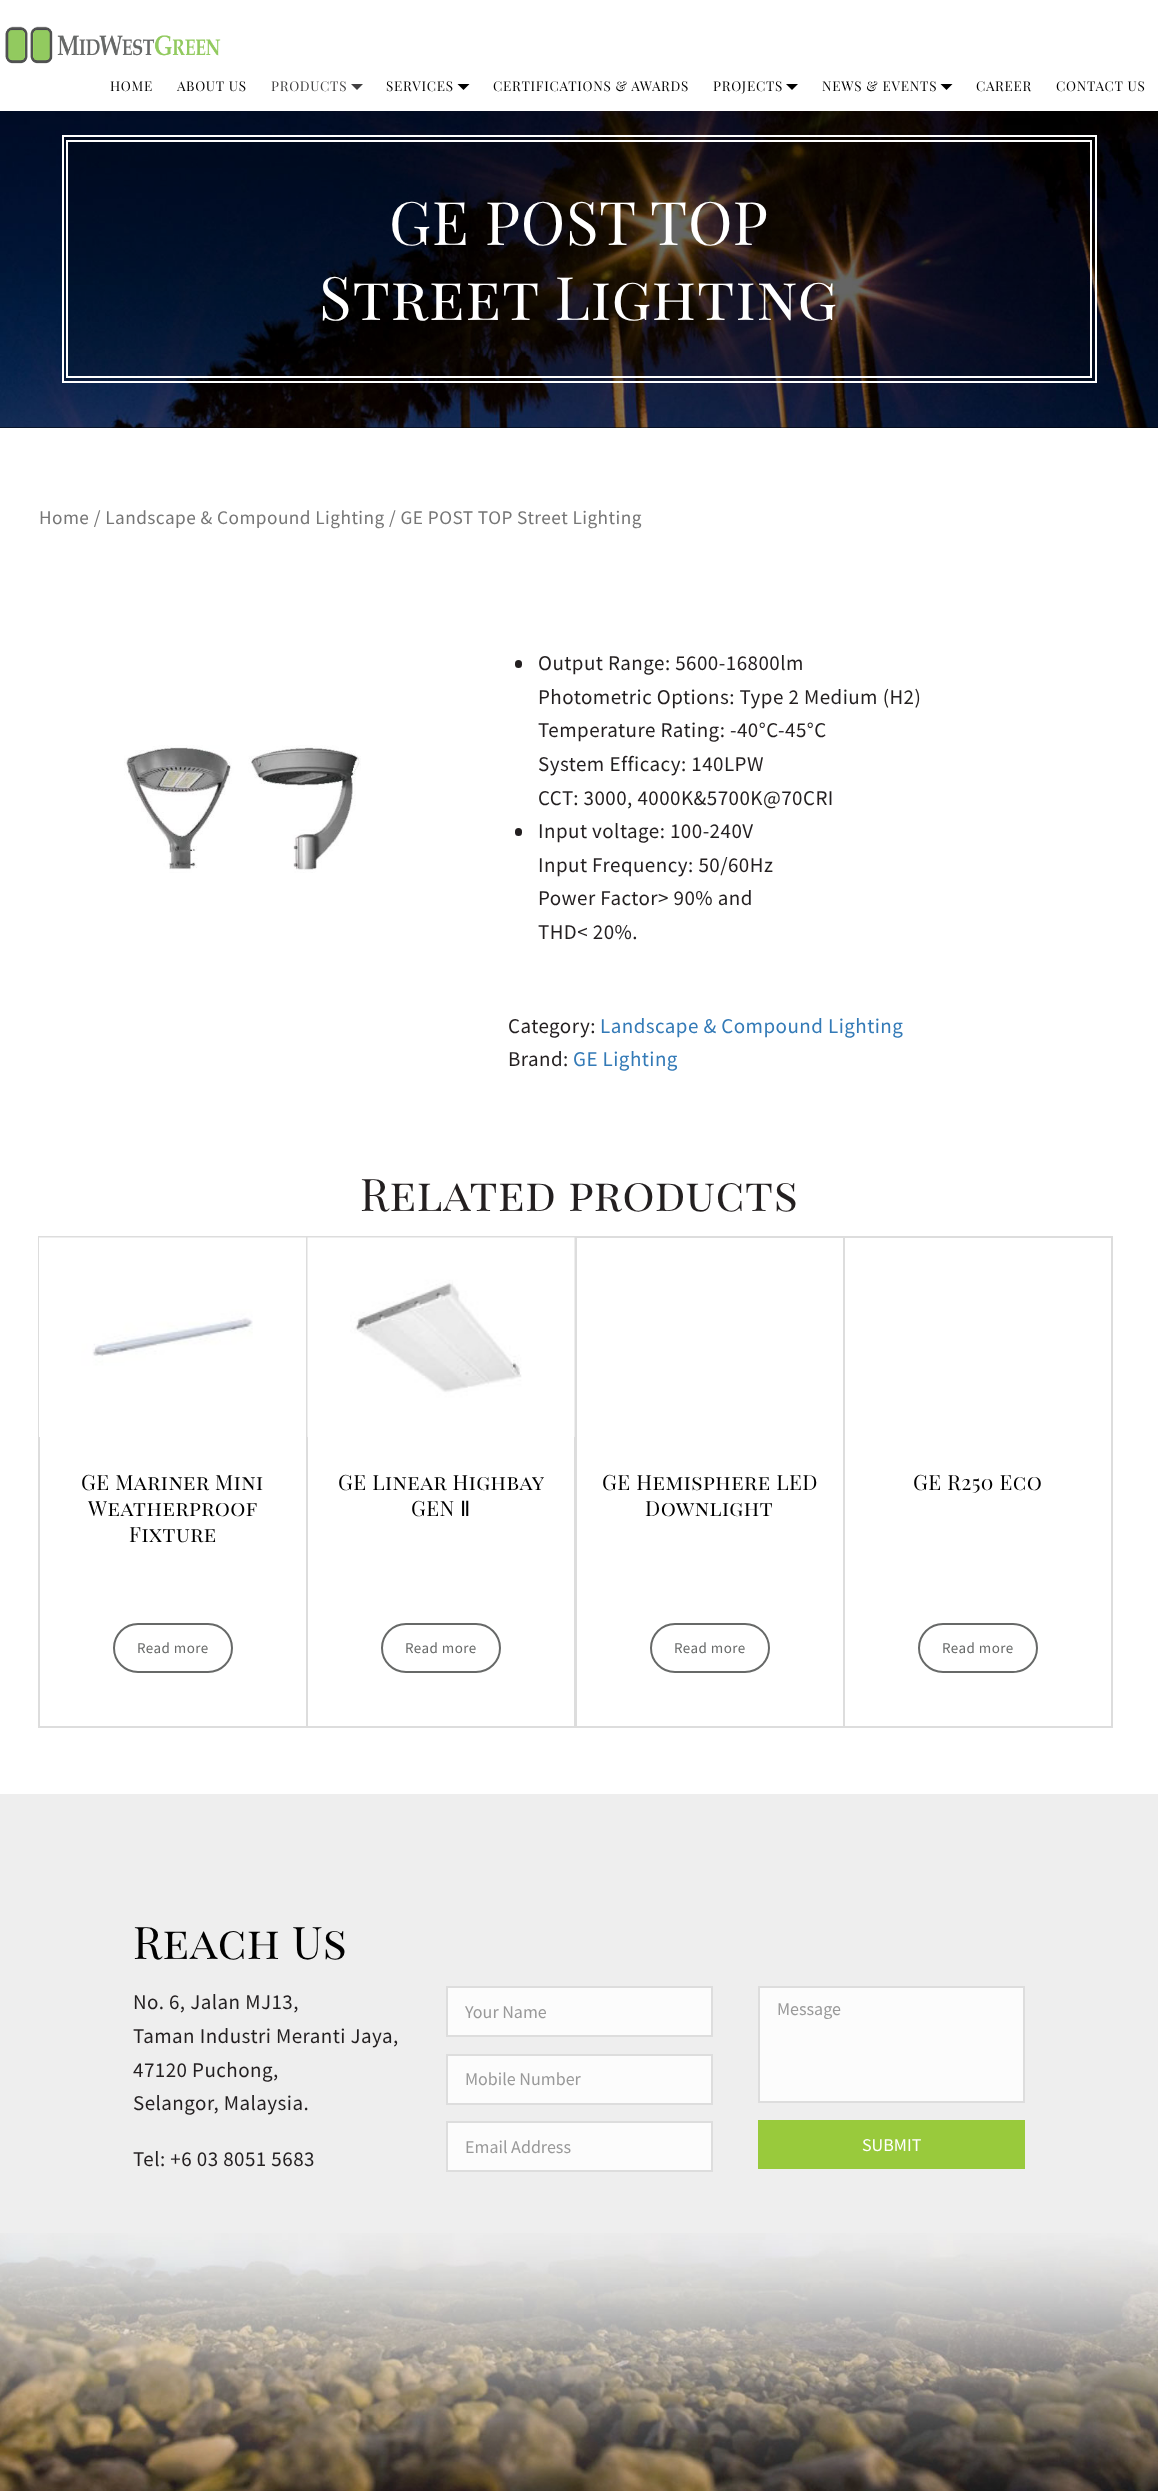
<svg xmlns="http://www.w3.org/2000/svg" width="1158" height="2491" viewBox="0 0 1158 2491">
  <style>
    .t1 { font: 13.5px Playfair Display; letter-spacing: 0.75px; fill: #000; }
    .t2 { font: 13.5px Playfair Display; letter-spacing: 0.75px; fill: #414041; }
    .t3 { font: 60px Playfair Display SC; letter-spacing: 0.75px; fill: #fff; }
    .t4 { font: 19.3px Source Sans Pro; letter-spacing: 0.45px; fill: #767676; }
    .t5 { font: 21px Source Sans Pro; letter-spacing: 0.45px; fill: #231f20; }
    .t6 { font: 21px Source Sans Pro; letter-spacing: 0.45px; fill: #337ab7; }
    .t7 { font: 45px Playfair Display SC; letter-spacing: 0.45px; fill: #231f20; }
    .t8 { font: 21px Playfair Display SC; letter-spacing: 0.45px; fill: #000; }
    .t9 { font: 15px Source Sans Pro; letter-spacing: 0.45px; fill: #676968; }
    .t10 { font: 21px DejaVu Sans; letter-spacing: 0.45px; fill: #000; }
    .t11 { font: 45px Playfair Display SC; letter-spacing: 0.45px; fill: #000; }
    .t12 { font: 18px Source Sans Pro; fill: #999; }
    .t13 { font: 18px Source Sans Pro; fill: #fff; }
  </style>
  <rect width="100%" height="100%" fill="#fff"/>
  <image x="5" y="26" width="216" height="38" href="images/1.png"/>
  <text x="110" y="91" class="t1">HOME</text>
  <text x="177" y="91" class="t1">ABOUT US</text>
  <text x="271" y="91" class="t2">PRODUCTS</text>
  <path d="M351 84H363L357 90Z" fill="#414041"/>
  <text x="386" y="91" class="t1">SERVICES</text>
  <path d="M457.5 84H469.5L463.5 90Z" fill="#000"/>
  <text x="493" y="91" class="t1">CERTIFICATIONS &amp; AWARDS</text>
  <text x="713" y="91" class="t1">PROJECTS</text>
  <path d="M786 84H798L792 90Z" fill="#000"/>
  <text x="822" y="91" class="t1">NEWS &amp; EVENTS</text>
  <path d="M940.5 84H952.5L946.5 90Z" fill="#000"/>
  <text x="976" y="91" class="t1">CAREER</text>
  <text x="1056" y="91" class="t1">CONTACT US</text>
  <rect x="0" y="427" width="1158" height="1" fill="#000"/>
  <image x="0" y="111" width="1158" height="317" href="images/2.png"/>
  <rect x="63" y="136" width="1033" height="246" fill="#00000033" stroke="#fff" stroke-width="2"/>
  <rect x="67" y="141" width="1024" height="236" fill="none" stroke="#fff" stroke-width="2"/>
  <text x="389" y="245" class="t3">GE POST TOP</text>
  <text x="319" y="320" class="t3">Street Lighting</text>
  <text x="39" y="524" class="t4">Home / Landscape &amp; Compound Lighting / GE POST TOP Street Lighting</text>
  <image x="124" y="745" width="237" height="128" href="images/3.png"/>
  <rect x="515" y="660" width="7" height="8" rx="3.5" fill="#231f20"/>
  <text x="538" y="670" class="t5">Output Range: 5600-16800lm</text>
  <text x="538" y="704" class="t5">Photometric Options: Type 2 Medium (H2)</text>
  <text x="538" y="737" class="t5">Temperature Rating: -40°C-45°C</text>
  <text x="538" y="771" class="t5">System Efficacy: 140LPW</text>
  <text x="538" y="805" class="t5">CCT: 3000, 4000K&amp;5700K@70CRI</text>
  <rect x="515" y="828" width="7" height="8" rx="3.5" fill="#231f20"/>
  <text x="538" y="838" class="t5">Input voltage: 100-240V</text>
  <text x="538" y="872" class="t5">Input Frequency: 50/60Hz</text>
  <text x="538" y="905" class="t5">Power Factor&gt; 90% and</text>
  <text x="538" y="939" class="t5">THD&lt; 20%.</text>
  <text x="508" y="1033" class="t5">Category:</text>
  <text x="600" y="1033" class="t6">Landscape &amp; Compound Lighting</text>
  <text x="508" y="1066" class="t5">Brand:</text>
  <text x="573" y="1066" class="t6">GE Lighting</text>
  <text x="360" y="1211" class="t7">Related products</text>
  <rect x="39" y="1237" width="268" height="490" fill="none" stroke="#ddd" stroke-width="2"/>
  <image x="39" y="1237" width="267" height="200" href="images/4.png"/>
  <text x="81" y="1490" class="t8">GE Mariner Mini</text>
  <text x="88" y="1516" class="t8">Weatherproof</text>
  <text x="129" y="1542" class="t8">Fixture</text>
  <rect x="114" y="1624" width="118" height="48" rx="24" fill="none" stroke="#676968" stroke-width="2"/>
  <text x="137" y="1653" class="t9">Read more</text>
  <rect x="307" y="1237" width="268" height="490" fill="none" stroke="#ddd" stroke-width="2"/>
  <image x="307" y="1237" width="268" height="200" href="images/5.png"/>
  <text x="338" y="1490" class="t8">GE Linear Highbay</text>
  <text x="411" y="1516" class="t8">GEN</text>
  <text x="460" y="1516" class="t10">Ⅱ</text>
  <rect x="382" y="1624" width="118" height="48" rx="24" fill="none" stroke="#676968" stroke-width="2"/>
  <text x="405" y="1653" class="t9">Read more</text>
  <rect x="576" y="1237" width="268" height="490" fill="none" stroke="#ddd" stroke-width="2"/>
  <text x="602" y="1490" class="t8">GE Hemisphere LED</text>
  <text x="645" y="1516" class="t8">Downlight</text>
  <rect x="651" y="1624" width="118" height="48" rx="24" fill="none" stroke="#676968" stroke-width="2"/>
  <text x="674" y="1653" class="t9">Read more</text>
  <rect x="844" y="1237" width="268" height="490" fill="none" stroke="#ddd" stroke-width="2"/>
  <text x="913" y="1490" class="t8">GE R250 Eco</text>
  <rect x="919" y="1624" width="118" height="48" rx="24" fill="none" stroke="#676968" stroke-width="2"/>
  <text x="942" y="1653" class="t9">Read more</text>
  <rect x="0" y="1794" width="1158" height="439" fill="#eee"/>
  <text x="133" y="1959" class="t11">Reach Us</text>
  <text x="133" y="2009" class="t5">No. 6, Jalan MJ13,</text>
  <text x="133" y="2043" class="t5">Taman Industri Meranti Jaya,</text>
  <text x="133" y="2077" class="t5">47120 Puchong,</text>
  <text x="133" y="2110" class="t5">Selangor, Malaysia.</text>
  <text x="133" y="2166" class="t5">Tel: +6 03 8051 5683</text>
  <rect x="447" y="1987" width="265" height="49" fill="#fcfcfc" stroke="#ddd" stroke-width="2"/>
  <text x="465" y="2018" class="t12">Your Name</text>
  <rect x="447" y="2055" width="265" height="49" fill="#fcfcfc" stroke="#ddd" stroke-width="2"/>
  <text x="465" y="2085" class="t12">Mobile Number</text>
  <rect x="447" y="2122" width="265" height="49" fill="#fcfcfc" stroke="#ddd" stroke-width="2"/>
  <text x="465" y="2153" class="t12">Email Address</text>
  <rect x="759" y="1987" width="265" height="115" fill="#fcfcfc" stroke="#ddd" stroke-width="2"/>
  <text x="777" y="2015" class="t12">Message</text>
  <rect x="758" y="2120" width="267" height="49" fill="#99ca3c"/>
  <text x="862" y="2151" class="t13">SUBMIT</text>
  <image x="0" y="2233" width="1158" height="258" href="images/6.png"/>
</svg>
